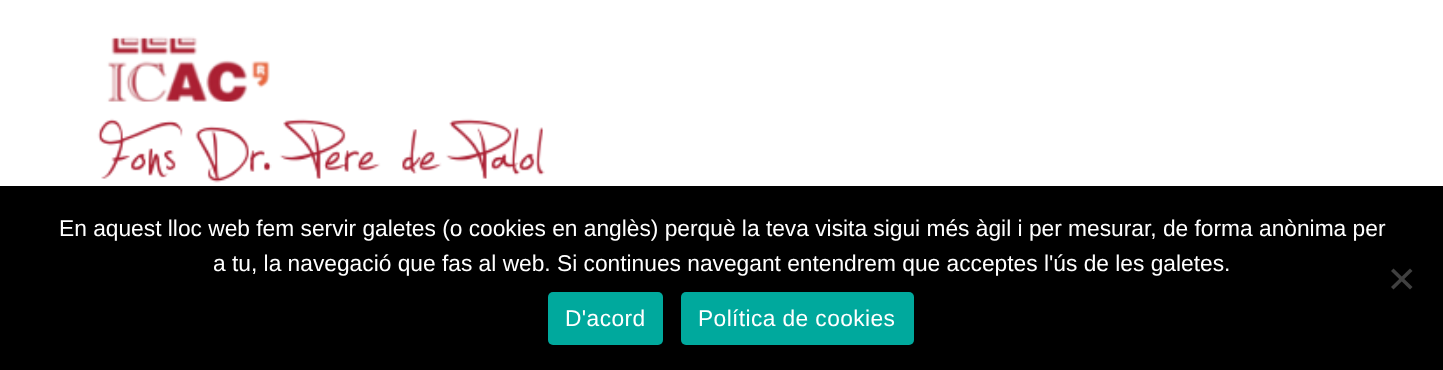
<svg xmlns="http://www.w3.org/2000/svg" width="1443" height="370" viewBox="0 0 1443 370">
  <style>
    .t1 { font: 22.75px Liberation Sans; fill: #fff; }
    .t2 { font: 22.75px Liberation Sans; letter-spacing: 0.4px; fill: #fff; }
  </style>
  <rect width="100%" height="100%" fill="#fff"/>
  <image x="97" y="36" width="448" height="147" href="images/1.png"/>
  <rect x="0" y="186" width="1443" height="184" fill="#000"/>
  <text x="59" y="236" class="t1">En aquest lloc web fem servir galetes (o cookies en anglès) perquè la teva visita sigui més àgil i per mesurar, de forma anònima per</text>
  <text x="213" y="271" class="t1">a tu, la navegació que fas al web. Si continues navegant entendrem que acceptes l'ús de les galetes.</text>
  <path d="M1410 268.5L1412.5 271L1393.5 289.5L1391 287Z" fill="#404040"/>
  <path d="M1391 271L1393.5 268.5L1412.5 287L1410 289.5Z" fill="#404040"/>
  <rect x="548" y="292" width="115" height="53" rx="5" fill="#00a99d"/>
  <text x="565" y="326" class="t2">D'acord</text>
  <rect x="681" y="292" width="233" height="53" rx="5" fill="#00a99d"/>
  <text x="698" y="326" class="t2">Política de cookies</text>
</svg>
